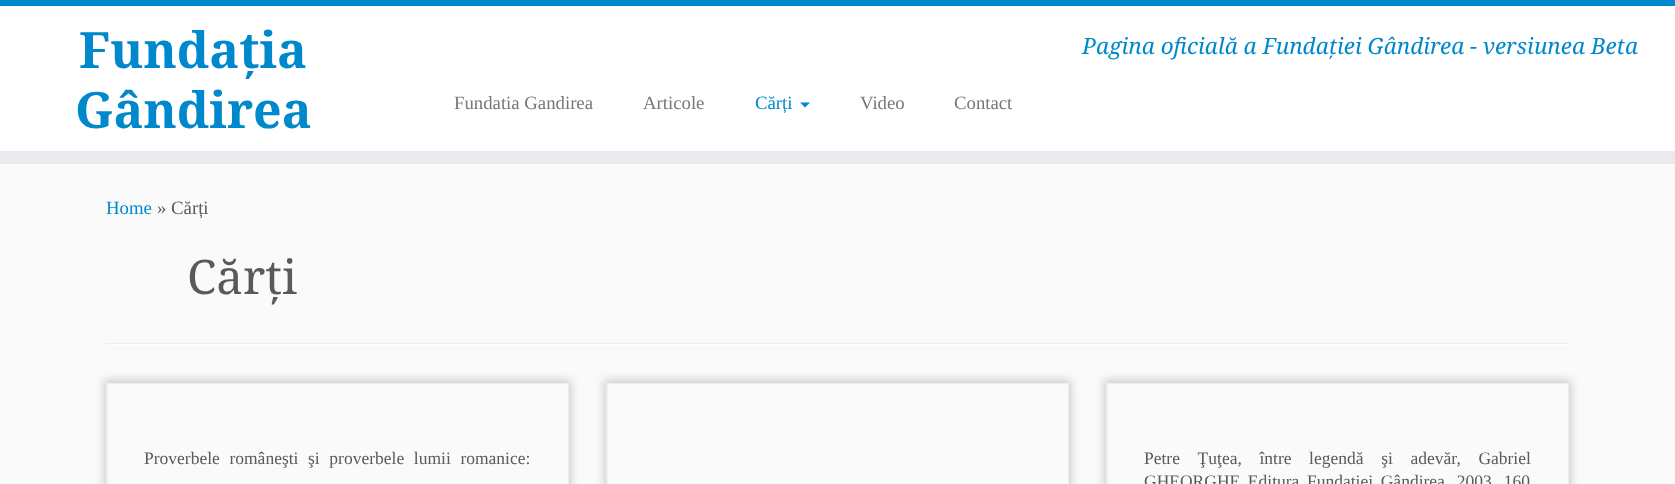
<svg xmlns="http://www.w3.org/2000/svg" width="1675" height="484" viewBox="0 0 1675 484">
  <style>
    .t1 { font: bold 50px Noto Serif; fill: #08c; }
    .t2 { font: italic 22.5px Noto Serif; fill: #08c; }
    .t3 { font: 18.75px Liberation Serif; fill: #777; }
    .t4 { font: 18.75px Liberation Serif; fill: #08c; }
    .t5 { font: 18.75px Liberation Serif; fill: #5a5a5a; }
    .t6 { font: 47.5px Noto Serif; fill: #5a5a5a; }
    .t7 { font: 17.5px Liberation Serif; fill: #5a5a5a; }
  </style>
  <defs>
    <clipPath id="clip1"><path d="M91 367H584V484H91ZM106 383H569V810H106Z" clip-rule="evenodd"/></clipPath>
    <clipPath id="clip2"><path d="M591 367H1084V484H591ZM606 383H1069V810H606Z" clip-rule="evenodd"/></clipPath>
    <clipPath id="clip3"><path d="M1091 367H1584V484H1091ZM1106 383H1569V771H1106Z" clip-rule="evenodd"/></clipPath>
  </defs>
  <rect width="100%" height="100%" fill="#fafafa"/>
  <rect x="0" y="6" width="1675" height="145" fill="#fff"/>
  <rect x="0" y="0" width="1675" height="6" fill="#08c"/>
  <rect x="0" y="151" width="1675" height="13" fill="#e9eaee"/>
  <text x="79" y="68" class="t1">Fundația</text>
  <text x="75" y="128" class="t1">Gândirea</text>
  <text x="1082" y="54" class="t2">Pagina oficială a Fundației Gândirea - versiunea Beta</text>
  <text x="454" y="109" class="t3">Fundatia Gandirea</text>
  <text x="643" y="109" class="t3">Articole</text>
  <text x="755" y="109" class="t4">Cărți</text>
  <path d="M800 102.5H810L805 107.5Z" fill="#08c"/>
  <text x="860" y="109" class="t3">Video</text>
  <text x="954" y="109" class="t3">Contact</text>
  <text x="106" y="214" class="t4">Home</text>
  <text x="157" y="214" class="t5">» Cărți</text>
  <text x="187" y="294" class="t6">Cărți</text>
  <rect x="106" y="343" width="1463" height="1" fill="#eee"/>
  <rect x="106" y="344" width="1463" height="1" fill="#fff"/>
  <g clip-path="url(#clip1)">
    <rect x="104" y="380" width="467" height="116" fill="#ccc" filter="blur(4px)"/>
  </g>
  <rect x="106" y="383" width="463" height="1" fill="#eee"/>
  <path d="M569 382V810L568 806V384Z" fill="#eee"/>
  <path d="M106 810V382L108 384V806Z" fill="#eee"/>
  <text x="144" y="464" word-spacing="5.25" class="t7">Proverbele româneşti şi proverbele lumii romanice:</text>
  <g clip-path="url(#clip2)">
    <rect x="604" y="380" width="467" height="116" fill="#ccc" filter="blur(4px)"/>
  </g>
  <rect x="606" y="383" width="463" height="1" fill="#eee"/>
  <path d="M1069 382V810L1068 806V384Z" fill="#eee"/>
  <path d="M606 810V382L608 384V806Z" fill="#eee"/>
  <g clip-path="url(#clip3)">
    <rect x="1104" y="380" width="467" height="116" fill="#ccc" filter="blur(4px)"/>
  </g>
  <rect x="1106" y="383" width="463" height="1" fill="#eee"/>
  <path d="M1569 382V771L1568 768V384Z" fill="#eee"/>
  <path d="M1106 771V382L1108 384V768Z" fill="#eee"/>
  <text x="1144" y="464" word-spacing="13.25" class="t7">Petre Ţuţea, între legendă şi adevăr, Gabriel</text>
  <text x="1144" y="487" word-spacing="3.25" class="t7">GHEORGHE Editura Fundaţiei Gândirea, 2003, 160</text>
</svg>
